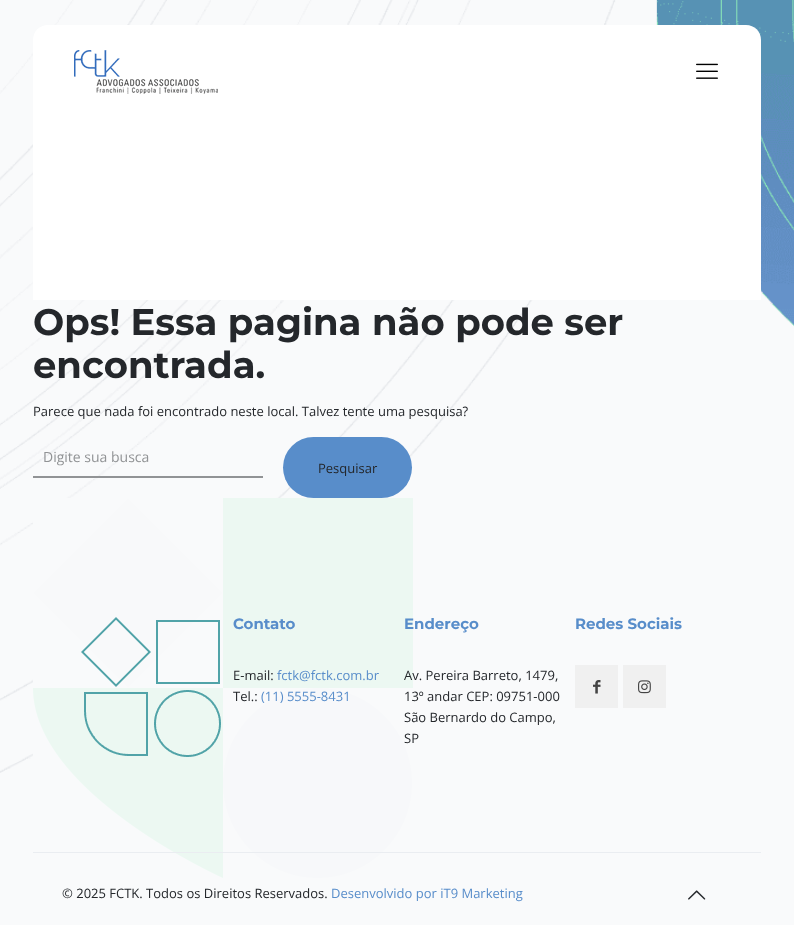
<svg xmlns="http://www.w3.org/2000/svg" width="794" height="925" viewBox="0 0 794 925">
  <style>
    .t1 { font: bold 37px Montserrat; fill: #24272b; }
    .t2 { font: 13px Open Sans; fill: #24272b; }
    .t3 { font: 14px Open Sans; fill: #919395; }
    .t4 { font: bold 15px Montserrat; fill: #588dca; }
    .t5 { font: 13px Open Sans; fill: #588dca; }
  </style>
  <rect width="100%" height="100%" fill="#f9fafb"/>
  <image x="0" y="0" width="794" height="773" href="images/1.png"/>
  <path d="M48 25H746C754.5 25 761 31.5 761 40V300H33V40C33 31.5 39.5 25 48 25Z" fill="#fff"/>
  <image x="74" y="50" width="144" height="44" href="images/2.png"/>
  <image x="696" y="63" width="22" height="16" href="images/3.png"/>
  <text x="33" y="335" class="t1">Ops! Essa pagina não pode ser</text>
  <text x="33" y="378" class="t1">encontrada.</text>
  <text x="33" y="416" class="t2">Parece que nada foi encontrado neste local. Talvez tente uma pesquisa?</text>
  <rect x="33" y="476" width="230" height="2" fill="#919395"/>
  <text x="43" y="462" class="t3">Digite sua busca</text>
  <rect x="283" y="437" width="129" height="61" rx="30.5" fill="#588dca"/>
  <text x="318" y="473" class="t2">Pesquisar</text>
  <path d="M33 498H761V921C761 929.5 754.5 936 746 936H48C39.5 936 33 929.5 33 921Z" fill="#f9fafb"/>
  <image x="33" y="498" width="380" height="380" href="images/4.png"/>
  <image x="81" y="617" width="140" height="140" href="images/5.png"/>
  <text x="233" y="629" class="t4">Contato</text>
  <text x="233" y="680" class="t2">E-mail:</text>
  <text x="277" y="680" class="t5">fctk@fctk.com.br</text>
  <text x="233" y="701" class="t2">Tel.:</text>
  <text x="261" y="701" class="t5">(11) 5555-8431</text>
  <text x="404" y="629" class="t4">Endereço</text>
  <text x="404" y="680" class="t2">Av. Pereira Barreto, 1479,</text>
  <text x="404" y="701" class="t2">13º andar CEP: 09751-000</text>
  <text x="404" y="722" class="t2">São Bernardo do Campo,</text>
  <text x="404" y="743" class="t2">SP</text>
  <text x="575" y="629" class="t4">Redes Sociais</text>
  <rect x="575" y="665" width="43" height="43" fill="#f0f0f0"/>
  <image x="593" y="680" width="8" height="14" href="images/6.png"/>
  <rect x="623" y="665" width="43" height="43" fill="#f0f0f0"/>
  <image x="638" y="680" width="13" height="14" href="images/7.png"/>
  <rect x="33" y="852" width="728" height="1" fill="#eaedf1"/>
  <text x="62" y="898" class="t2">© 2025 FCTK. Todos os Direitos Reservados.</text>
  <text x="331" y="898" class="t5">Desenvolvido por iT9 Marketing</text>
  <image x="688" y="890" width="18" height="10" href="images/8.png"/>
</svg>
